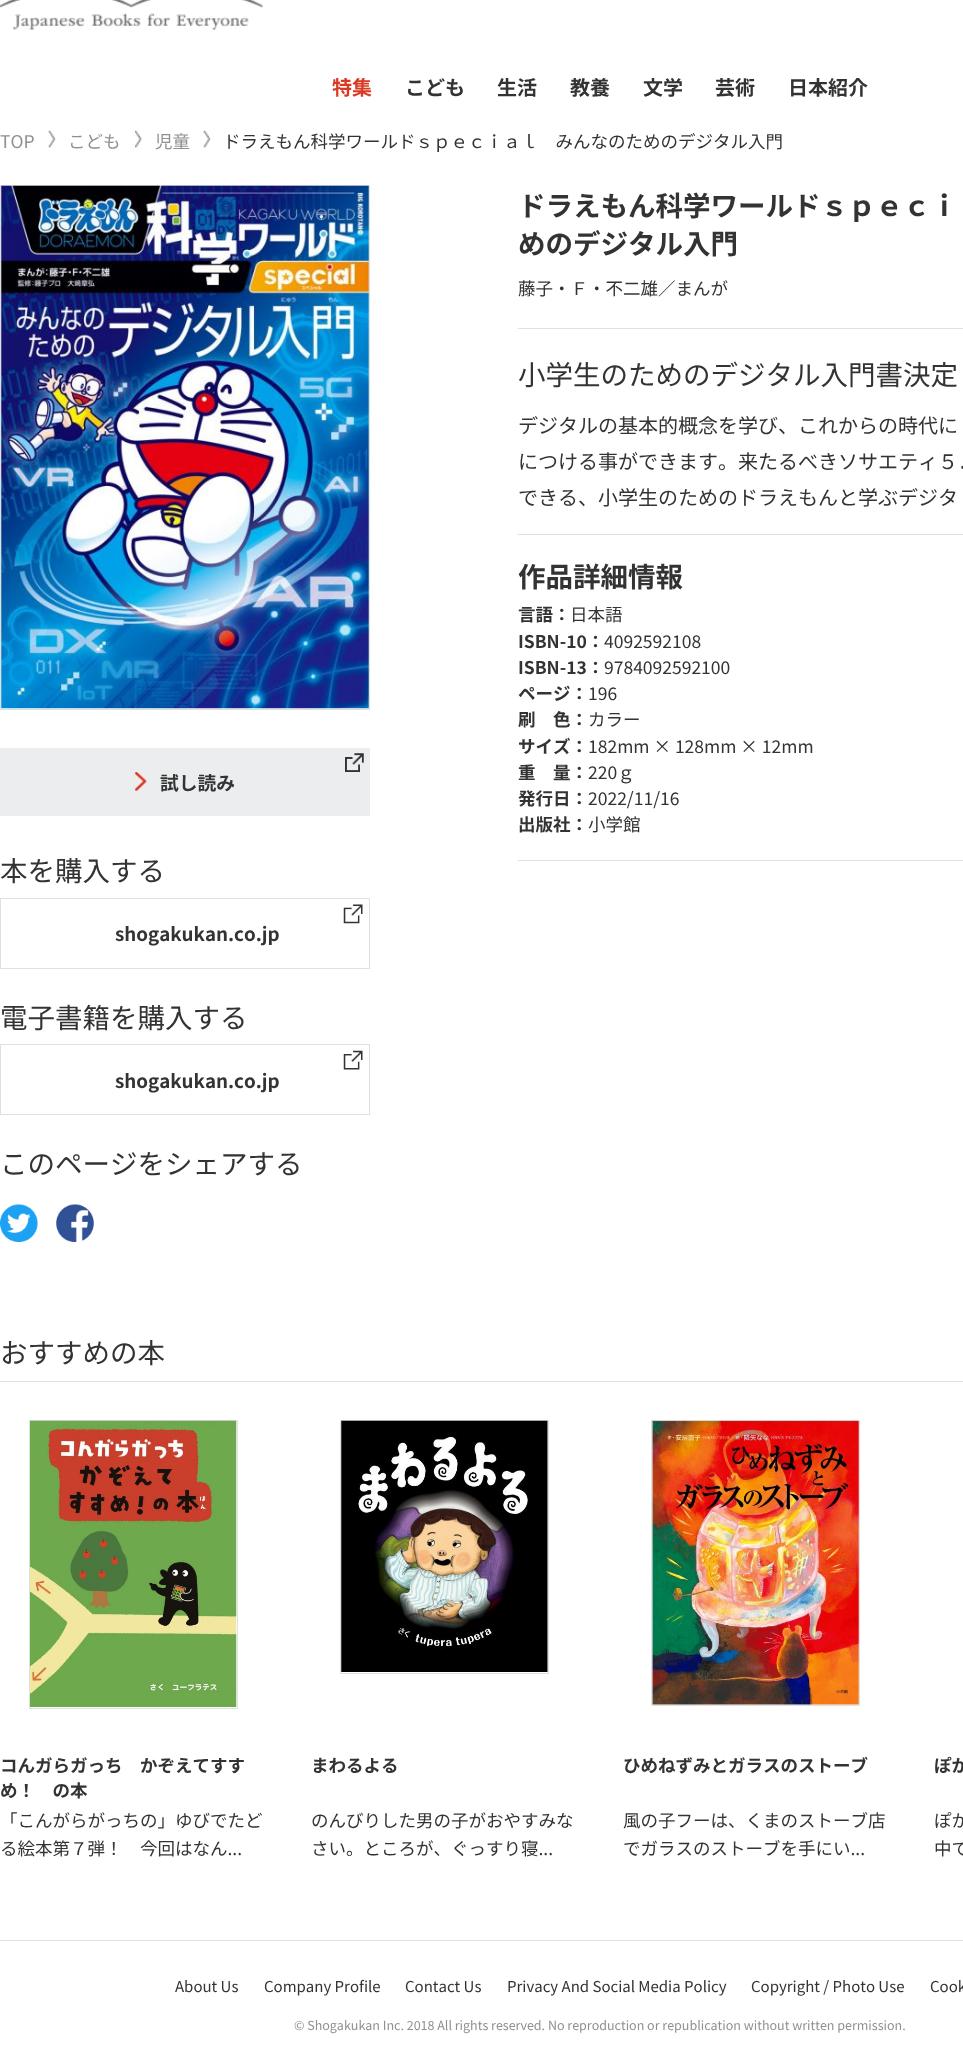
<svg xmlns="http://www.w3.org/2000/svg" width="963" height="2059" viewBox="0 0 963 2059">
  <style>*{font-kerning:none!important;font-variant-ligatures:none!important}</style>
  <style>
    .t1 { font: bold 20px Noto Sans JP; fill: #da3924; }
    .t2 { font: bold 20px Noto Sans JP; fill: #333; }
    .t3 { font: 17.5px Noto Sans JP; fill: #909090; }
    .t4 { font: 17.5px Noto Sans JP; fill: #333; }
    .t5 { font: bold 27.5px Noto Sans JP; fill: #333; }
    .t6 { font: 27.5px Noto Sans JP; fill: #333; }
    .t7 { font: 20px Noto Sans JP; fill: #333; }
    .t8 { font: bold 17.5px Noto Sans JP; fill: #333; }
    .t9 { font: bold 18.75px Noto Sans JP; fill: #333; }
    .t10 { font: 15px Noto Sans JP; fill: #333; }
    .t11 { font: 12.5px Noto Sans JP; fill: #909090; }
  </style>
  <rect width="100%" height="100%" fill="#fff"/>
  <image x="0" y="0" width="263" height="30" href="images/1.png"/>
  <text x="332" y="95" class="t1">特集</text>
  <text x="405" y="95" class="t2">こども</text>
  <text x="497" y="95" class="t2">生活</text>
  <text x="570" y="95" class="t2">教養</text>
  <text x="643" y="95" class="t2">文学</text>
  <text x="715" y="95" class="t2">芸術</text>
  <text x="788" y="95" class="t2">日本紹介</text>
  <text x="0" y="148" class="t3">TOP</text>
  <image x="48" y="130" width="8" height="19" href="images/2.png"/>
  <text x="68" y="148" class="t3">こども</text>
  <image x="135" y="130" width="7" height="19" href="images/3.png"/>
  <text x="155" y="148" class="t3">児童</text>
  <image x="203" y="130" width="8" height="19" href="images/2.png"/>
  <text x="223" y="148" class="t4">ドラえもん科学ワールドｓｐｅｃｉａｌ　みんなのためのデジタル入門</text>
  <rect x="518" y="328" width="445" height="1" fill="#dce1e1"/>
  <text x="518" y="216" class="t5">ドラえもん科学ワールドｓｐｅｃｉ</text>
  <text x="518" y="254" class="t5">めのデジタル入門</text>
  <text x="518" y="295" class="t4">藤子・Ｆ・不二雄／まんが</text>
  <text x="518" y="385" class="t6">小学生のためのデジタル入門書決定</text>
  <text x="518" y="433" class="t7">デジタルの基本的概念を学び、これからの時代に</text>
  <text x="518" y="469" class="t7">につける事ができます。来たるべきソサエティ５．</text>
  <text x="518" y="505" class="t7">できる、小学生のためのドラえもんと学ぶデジタ</text>
  <rect x="518" y="534" width="445" height="1" fill="#dce1e1"/>
  <rect x="518" y="860" width="445" height="1" fill="#dce1e1"/>
  <text x="518" y="587" class="t5">作品詳細情報</text>
  <text x="518" y="621" class="t8">言語：</text>
  <text x="570" y="621" class="t4">日本語</text>
  <text x="518" y="648" class="t8">ISBN-10：</text>
  <text x="604" y="648" class="t4">4092592108</text>
  <text x="518" y="674" class="t8">ISBN-13：</text>
  <text x="604" y="674" class="t4">9784092592100</text>
  <text x="518" y="700" class="t8">ページ：</text>
  <text x="588" y="700" class="t4">196</text>
  <text x="518" y="726" class="t8">刷　色：</text>
  <text x="588" y="726" class="t4">カラー</text>
  <text x="518" y="753" class="t8">サイズ：</text>
  <text x="588" y="753" class="t4">182mm × 128mm × 12mm</text>
  <text x="518" y="779" class="t8">重　量：</text>
  <text x="588" y="779" class="t4">220ｇ</text>
  <text x="518" y="805" class="t8">発行日：</text>
  <text x="588" y="805" class="t4">2022/11/16</text>
  <text x="518" y="831" class="t8">出版社：</text>
  <text x="588" y="831" class="t4">小学館</text>
  <rect x="0.5" y="185.5" width="369" height="524" fill="none" stroke="#dce1e1"/>
  <image x="1" y="185" width="368" height="524" href="images/4.png"/>
  <rect x="0" y="748" width="370" height="68" fill="#ecedee"/>
  <image x="345" y="753" width="19" height="19" href="images/5.png"/>
  <image x="135" y="772" width="12" height="19" href="images/6.png"/>
  <text x="160" y="790" class="t9">試し読み</text>
  <text x="0" y="881" class="t6">本を購入する</text>
  <rect x="0.5" y="898.5" width="369" height="70" fill="none" stroke="#dce1e1"/>
  <image x="343" y="904" width="20" height="20" href="images/7.png"/>
  <text x="115" y="941" class="t9">shogakukan.co.jp</text>
  <text x="0" y="1028" class="t6">電子書籍を購入する</text>
  <rect x="0.5" y="1044.5" width="369" height="70" fill="none" stroke="#dce1e1"/>
  <image x="343" y="1050" width="20" height="20" href="images/8.png"/>
  <text x="115" y="1088" class="t9">shogakukan.co.jp</text>
  <text x="0" y="1174" class="t6">このページをシェアする</text>
  <image x="0" y="1204" width="38" height="38" href="images/9.png"/>
  <image x="56" y="1204" width="38" height="38" href="images/10.png"/>
  <rect x="0" y="1381" width="963" height="1" fill="#dce1e1"/>
  <text x="0" y="1363" class="t6">おすすめの本</text>
  <rect x="29.5" y="1420.5" width="208" height="288" fill="none" stroke="#dce1e1"/>
  <image x="30" y="1420" width="207" height="287" href="images/11.png"/>
  <text x="0" y="1772" class="t8">コんガらガっち　かぞえてすす</text>
  <text x="0" y="1797" class="t8">め！　の本</text>
  <text x="0" y="1827" class="t4">「こんがらがっちの」ゆびでたど</text>
  <text x="0" y="1855" class="t4">る絵本第７弾！　今回はなん...</text>
  <rect x="340.5" y="1420.5" width="208" height="253" fill="none" stroke="#dce1e1"/>
  <image x="341" y="1420" width="207" height="252" href="images/12.png"/>
  <text x="311" y="1772" class="t8">まわるよる</text>
  <text x="311" y="1827" class="t4">のんびりした男の子がおやすみな</text>
  <text x="311" y="1855" class="t4">さい。ところが、ぐっすり寝...</text>
  <rect x="651.5" y="1420.5" width="208" height="285" fill="none" stroke="#dce1e1"/>
  <image x="652" y="1420" width="207" height="285" href="images/13.png"/>
  <text x="623" y="1772" class="t8">ひめねずみとガラスのストーブ</text>
  <text x="623" y="1827" class="t4">風の子フーは、くまのストーブ店</text>
  <text x="623" y="1855" class="t4">でガラスのストーブを手にい...</text>
  <text x="934" y="1772" class="t8">ぽか</text>
  <text x="934" y="1827" class="t4">ぽか</text>
  <text x="934" y="1855" class="t4">中で</text>
  <rect x="0" y="1940" width="963" height="1" fill="#dce1e1"/>
  <text x="175" y="1992" class="t10">About Us</text>
  <text x="264" y="1992" class="t10">Company Profile</text>
  <text x="405" y="1992" class="t10">Contact Us</text>
  <text x="507" y="1992" class="t10">Privacy And Social Media Policy</text>
  <text x="751" y="1992" class="t10">Copyright / Photo Use</text>
  <text x="930" y="1992" class="t10">Cook</text>
  <text x="294" y="2030" class="t11">© Shogakukan Inc. 2018 All rights reserved. No reproduction or republication without written permission.</text>
</svg>
